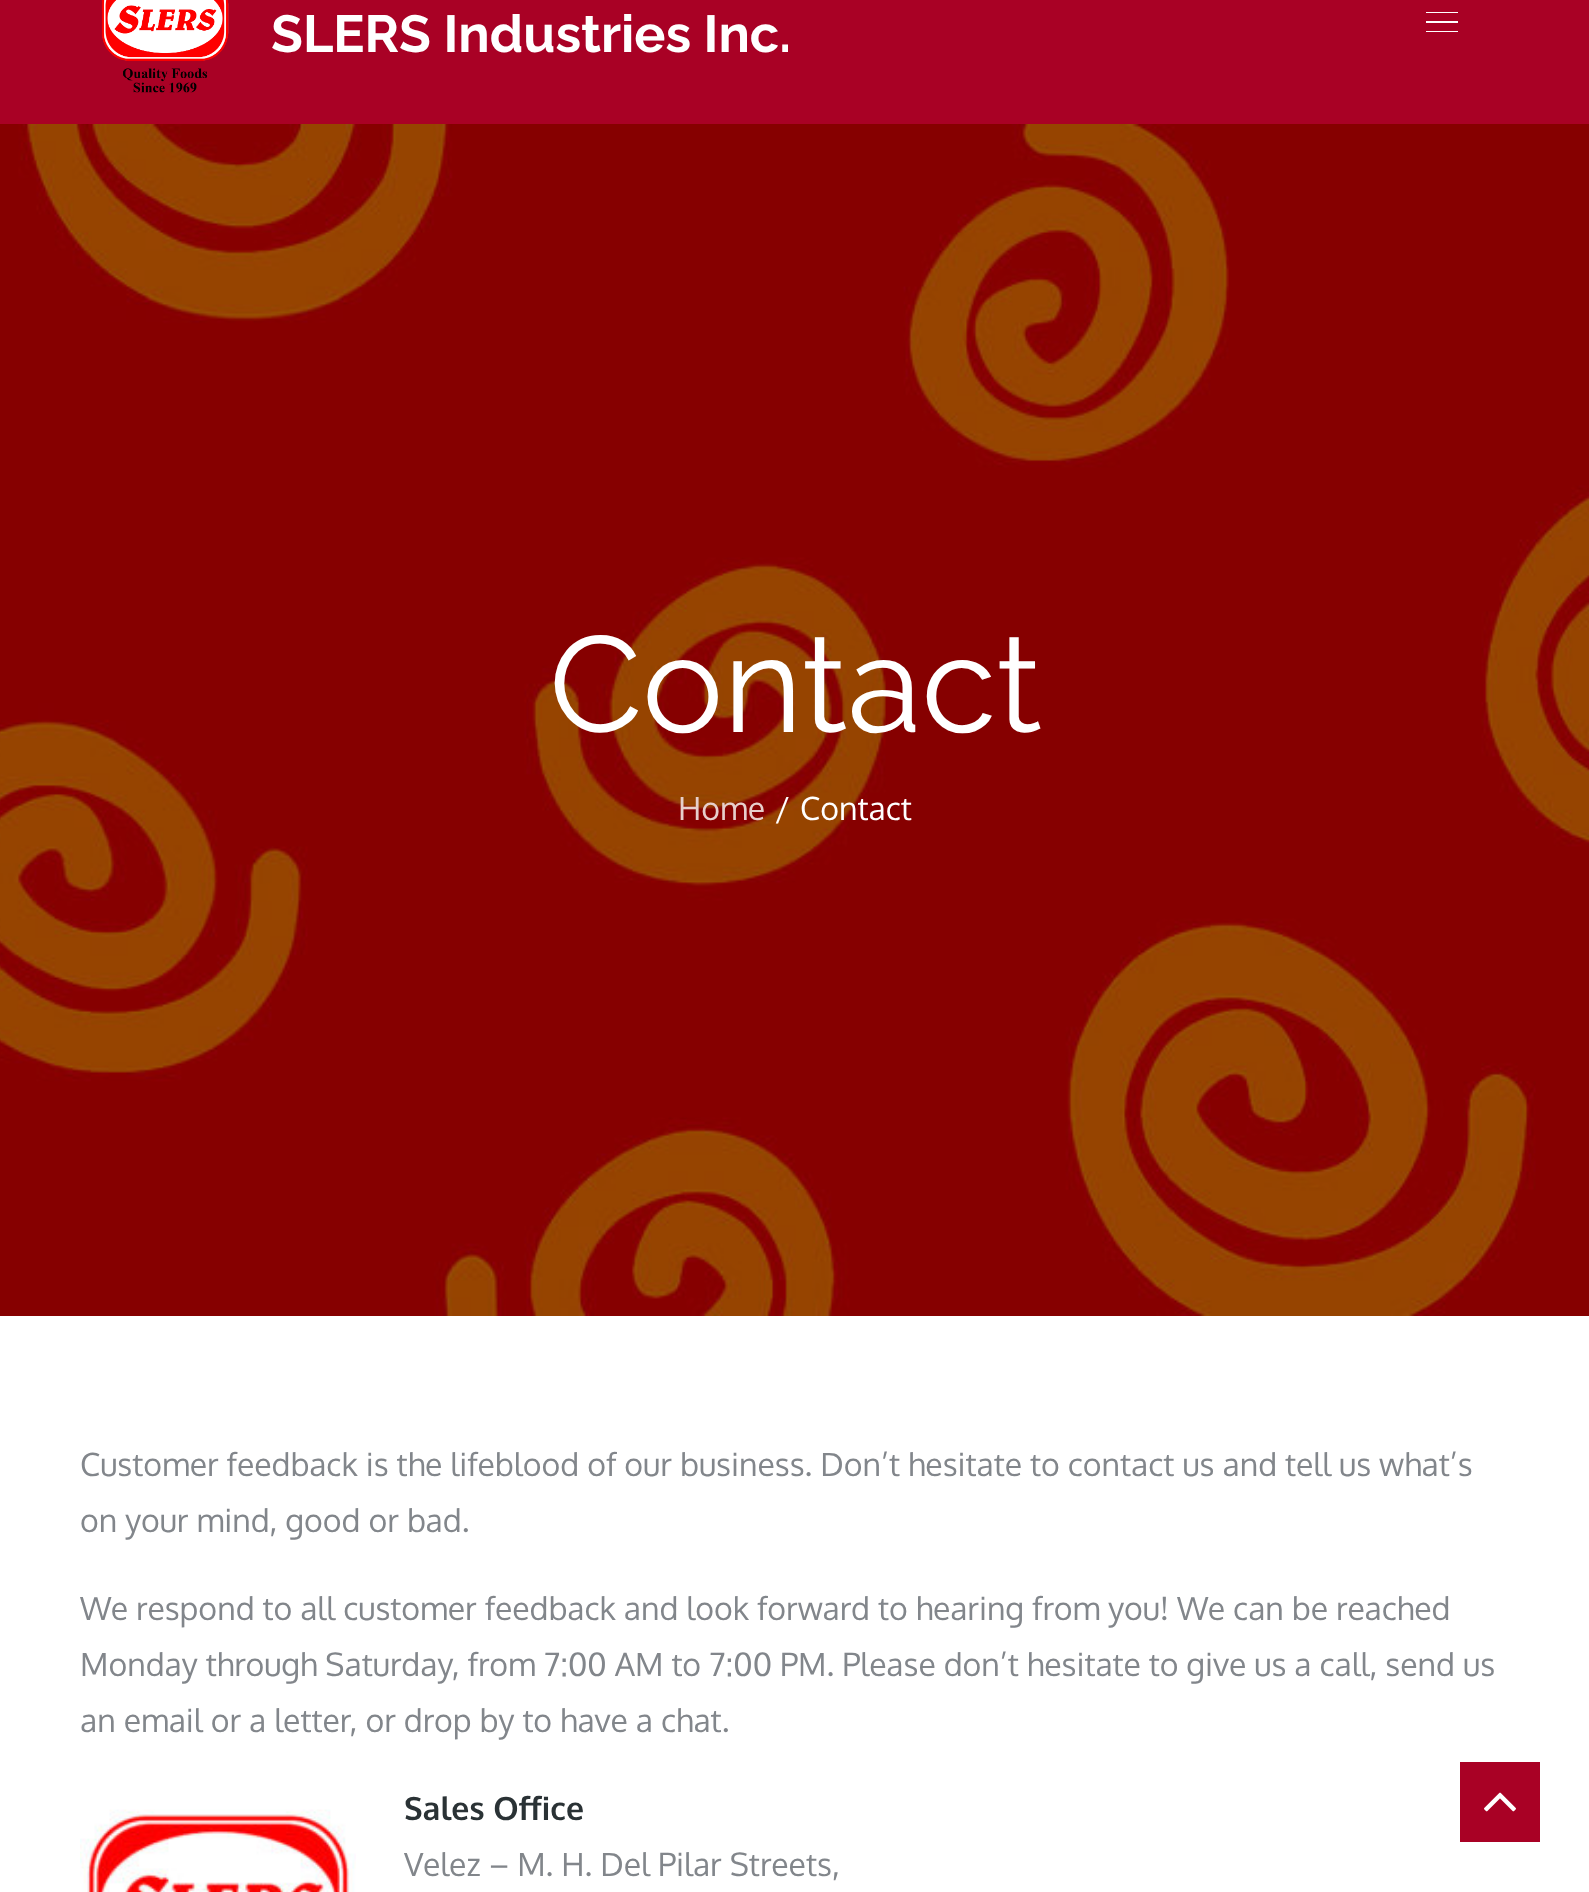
<svg xmlns="http://www.w3.org/2000/svg" width="1589" height="1892" viewBox="0 0 1589 1892">
  <style>
    .t1 { font: bold 52px Raleway; fill: #fff; }
    .t2 { font: 136px Raleway; fill: #fff; }
    .t3 { font: 32px Oxygen; fill: #e7cfcc; }
    .t4 { font: 32px Oxygen; fill: #fff; }
    .t5 { font: 32px Oxygen; fill: #82868b; }
    .t6 { font: bold 32px Oxygen; fill: #2a3235; }
  </style>
  <rect width="100%" height="100%" fill="#fff"/>
  <rect x="0" y="0" width="1589" height="124" fill="#a90125"/>
  <image x="101" y="0" width="128" height="93" href="images/1.png"/>
  <text x="271" y="52" class="t1">SLERS Industries Inc.</text>
  <rect x="1426" y="12" width="32" height="1" fill="#fff"/>
  <rect x="1426" y="21" width="32" height="2" fill="#fff"/>
  <rect x="1426" y="31" width="32" height="1" fill="#fff"/>
  <image x="0" y="124" width="1589" height="1192" href="images/2.png"/>
  <text x="549" y="732" class="t2">Contact</text>
  <text x="678" y="820" class="t3">Home</text>
  <text x="775" y="820" class="t4">/</text>
  <text x="800" y="820" class="t4">Contact</text>
  <text x="80" y="1476" class="t5">Customer feedback is the lifeblood of our business. Don’t hesitate to contact us and tell us what’s</text>
  <text x="80" y="1532" class="t5">on your mind, good or bad.</text>
  <text x="80" y="1620" class="t5">We respond to all customer feedback and look forward to hearing from you! We can be reached</text>
  <text x="80" y="1676" class="t5">Monday through Saturday, from 7:00 AM to 7:00 PM. Please don’t hesitate to give us a call, send us</text>
  <text x="80" y="1732" class="t5">an email or a letter, or drop by to have a chat.</text>
  <image x="80" y="1809" width="276" height="83" href="images/3.png"/>
  <text x="404" y="1820" class="t6">Sales Office</text>
  <text x="404" y="1876" class="t5">Velez – M. H. Del Pilar Streets,</text>
  <rect x="1460" y="1762" width="80" height="80" fill="#a90125"/>
  <image x="1484" y="1792" width="32" height="20" href="images/4.png"/>
</svg>
